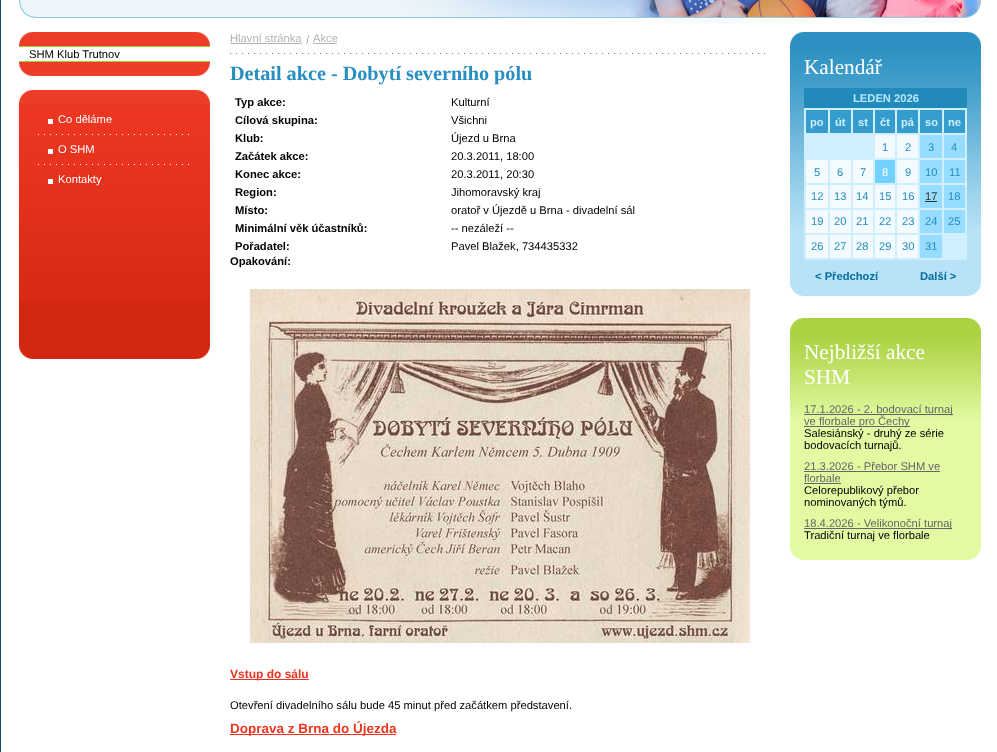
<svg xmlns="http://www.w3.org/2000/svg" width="997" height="752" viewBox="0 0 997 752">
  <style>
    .t1 { font: 11.2px Liberation Sans; fill: #000; }
    .t2 { font: 11.2px Liberation Sans; fill: #fff; }
    .t3 { font: 11.2px Liberation Sans; fill: #b3b3b3; }
    .t4 { font: bold 20.2px Liberation Serif; fill: #268ec0; }
    .t5 { font: bold 11.2px Liberation Sans; fill: #000; }
    .t6 { font: bold 12px Liberation Sans; fill: #eb3621; }
    .t7 { font: bold 13.5px Liberation Sans; fill: #eb3621; }
    .t8 { font: 21.25px Liberation Serif; fill: #fff; }
    .t9 { font: bold 11.2px Liberation Sans; fill: #b6e7ff; }
    .t10 { font: bold 11.2px Liberation Sans; fill: #cef; }
    .t11 { font: 11.2px Liberation Sans; fill: #268ec0; }
    .t12 { font: 11.2px Liberation Sans; fill: #333; }
    .t13 { font: bold 11.2px Liberation Sans; fill: #056c9e; }
    .t14 { font: 11.2px Liberation Sans; fill: #666; }
  </style>
  <defs>
    <clipPath id="clip1"><rect x="19" y="32" width="191" height="46"/></clipPath>
  </defs>
  <rect width="100%" height="100%" fill="#fff"/>
  <rect x="0" y="0" width="1" height="752" fill="#144b65"/>
  <image x="19" y="0" width="962" height="18" href="images/1.png"/>
  <image x="19" y="32" width="191" height="14" href="images/2.png"/>
  <image x="230" y="53" width="535" height="1" href="images/8.png"/>
  <g clip-path="url(#clip1)">
    <rect x="18.5" y="46.5" width="253" height="15" fill="none" stroke="#a5cd39"/>
  </g>
  <text x="29" y="58" class="t1">SHM Klub Trutnov</text>
  <image x="19" y="62" width="191" height="14" href="images/3.png"/>
  <rect x="19" y="299" width="191" height="46" fill="#d42712"/>
  <image x="19" y="104" width="191" height="195" href="images/4.png"/>
  <image x="19" y="90" width="191" height="14" href="images/2.png"/>
  <text x="58" y="123" class="t2">Co děláme</text>
  <rect x="48" y="119" width="5" height="5" fill="#fff"/>
  <image x="38" y="134" width="151" height="1" href="images/5.png"/>
  <text x="58" y="153" class="t2">O SHM</text>
  <rect x="48" y="149" width="5" height="5" fill="#fff"/>
  <image x="38" y="164" width="151" height="1" href="images/6.png"/>
  <text x="58" y="183" class="t2">Kontakty</text>
  <rect x="48" y="179" width="5" height="5" fill="#fff"/>
  <image x="19" y="345" width="191" height="14" href="images/7.png"/>
  <image x="306" y="35" width="3" height="9" href="images/9.png"/>
  <text x="230" y="42" class="t3">Hlavní stránka</text>
  <rect x="230" y="43" width="72" height="1" fill="#b3b3b3"/>
  <text x="313" y="42" class="t3">Akce</text>
  <rect x="313" y="43" width="24" height="1" fill="#b3b3b3"/>
  <text x="230" y="80" class="t4">Detail akce - Dobytí severního pólu</text>
  <text x="235" y="106" class="t5">Typ akce:</text>
  <text x="451" y="106" class="t1">Kulturní</text>
  <text x="235" y="124" class="t5">Cílová skupina:</text>
  <text x="451" y="124" class="t1">Všichni</text>
  <text x="235" y="142" class="t5">Klub:</text>
  <text x="451" y="142" class="t1">Újezd u Brna</text>
  <text x="235" y="160" class="t5">Začátek akce:</text>
  <text x="451" y="160" class="t1">20.3.2011, 18:00</text>
  <text x="235" y="178" class="t5">Konec akce:</text>
  <text x="451" y="178" class="t1">20.3.2011, 20:30</text>
  <text x="235" y="196" class="t5">Region:</text>
  <text x="451" y="196" class="t1">Jihomoravský kraj</text>
  <text x="235" y="214" class="t5">Místo:</text>
  <text x="451" y="214" class="t1">oratoř v Újezdě u Brna - divadelní sál</text>
  <text x="235" y="232" class="t5">Minimální věk účastníků:</text>
  <text x="451" y="232" class="t1">-- nezáleží --</text>
  <text x="235" y="250" class="t5">Pořadatel:</text>
  <text x="451" y="250" class="t1">Pavel Blažek, 734435332</text>
  <text x="230" y="265" class="t5">Opakování:</text>
  <image x="250" y="289" width="500" height="354" href="images/10.png"/>
  <rect x="230" y="679" width="79" height="1" fill="#eb3621"/>
  <text x="230" y="678" class="t6">Vstup do sálu</text>
  <text x="230" y="709" class="t1">Otevření divadelního sálu bude 45 minut před začátkem představení.</text>
  <rect x="230" y="734" width="166" height="1" fill="#eb3621"/>
  <text x="230" y="733" class="t7">Doprava z Brna do Újezda</text>
  <rect x="790" y="227" width="191" height="56" fill="#b7e2f7"/>
  <image x="790" y="46" width="191" height="181" href="images/11.png"/>
  <image x="790" y="32" width="191" height="14" href="images/12.png"/>
  <text x="804" y="74" class="t8">Kalendář</text>
  <rect x="804" y="108" width="163" height="152" fill="#cfefff"/>
  <rect x="804" y="88" width="163" height="20" fill="#2289bb"/>
  <text x="853" y="102" class="t9">LEDEN 2026</text>
  <rect x="806" y="110" width="22" height="23" fill="#359cce"/>
  <text x="810" y="126" class="t10">po</text>
  <rect x="830" y="110" width="21" height="23" fill="#359cce"/>
  <text x="835" y="126" class="t10">út</text>
  <rect x="853" y="110" width="20" height="23" fill="#359cce"/>
  <text x="858" y="126" class="t10">st</text>
  <rect x="875" y="110" width="20" height="23" fill="#359cce"/>
  <text x="880" y="126" class="t10">čt</text>
  <rect x="897" y="110" width="21" height="23" fill="#359cce"/>
  <text x="901" y="126" class="t10">pá</text>
  <rect x="920" y="110" width="22" height="23" fill="#359cce"/>
  <text x="925" y="126" class="t10">so</text>
  <rect x="944" y="110" width="21" height="23" fill="#359cce"/>
  <text x="948" y="126" class="t10">ne</text>
  <rect x="875" y="135" width="20" height="23" fill="#f3fbff"/>
  <text x="882" y="151" class="t11">1</text>
  <rect x="897" y="135" width="21" height="23" fill="#f3fbff"/>
  <text x="905" y="151" class="t11">2</text>
  <rect x="920" y="135" width="22" height="23" fill="#97ddff"/>
  <text x="928" y="151" class="t11">3</text>
  <rect x="944" y="135" width="21" height="23" fill="#97ddff"/>
  <text x="951" y="151" class="t11">4</text>
  <rect x="806" y="160" width="22" height="23" fill="#f3fbff"/>
  <text x="814" y="176" class="t11">5</text>
  <rect x="830" y="160" width="21" height="23" fill="#f3fbff"/>
  <text x="837" y="176" class="t11">6</text>
  <rect x="853" y="160" width="20" height="23" fill="#f3fbff"/>
  <text x="860" y="176" class="t11">7</text>
  <rect x="875" y="160" width="20" height="23" fill="#73d1ff"/>
  <text x="882" y="176" class="t2">8</text>
  <rect x="897" y="160" width="21" height="23" fill="#f3fbff"/>
  <text x="905" y="176" class="t11">9</text>
  <rect x="920" y="160" width="22" height="23" fill="#97ddff"/>
  <text x="925" y="176" class="t11">10</text>
  <rect x="944" y="160" width="21" height="23" fill="#97ddff"/>
  <text x="949" y="176" class="t11">11</text>
  <rect x="806" y="185" width="22" height="23" fill="#f3fbff"/>
  <text x="811" y="200" class="t11">12</text>
  <rect x="830" y="185" width="21" height="23" fill="#f3fbff"/>
  <text x="834" y="200" class="t11">13</text>
  <rect x="853" y="185" width="20" height="23" fill="#f3fbff"/>
  <text x="856" y="200" class="t11">14</text>
  <rect x="875" y="185" width="20" height="23" fill="#f3fbff"/>
  <text x="879" y="200" class="t11">15</text>
  <rect x="897" y="185" width="21" height="23" fill="#f3fbff"/>
  <text x="902" y="200" class="t11">16</text>
  <rect x="920" y="185" width="22" height="23" fill="#97ddff"/>
  <text x="925" y="200" class="t12">17</text>
  <rect x="925" y="201" width="12" height="1" fill="#333"/>
  <rect x="944" y="185" width="21" height="23" fill="#97ddff"/>
  <text x="948" y="200" class="t11">18</text>
  <rect x="806" y="210" width="22" height="23" fill="#f3fbff"/>
  <text x="811" y="225" class="t11">19</text>
  <rect x="830" y="210" width="21" height="23" fill="#f3fbff"/>
  <text x="834" y="225" class="t11">20</text>
  <rect x="853" y="210" width="20" height="23" fill="#f3fbff"/>
  <text x="856" y="225" class="t11">21</text>
  <rect x="875" y="210" width="20" height="23" fill="#f3fbff"/>
  <text x="879" y="225" class="t11">22</text>
  <rect x="897" y="210" width="21" height="23" fill="#f3fbff"/>
  <text x="902" y="225" class="t11">23</text>
  <rect x="920" y="210" width="22" height="23" fill="#97ddff"/>
  <text x="925" y="225" class="t11">24</text>
  <rect x="944" y="210" width="21" height="23" fill="#97ddff"/>
  <text x="948" y="225" class="t11">25</text>
  <rect x="806" y="235" width="22" height="23" fill="#f3fbff"/>
  <text x="811" y="250" class="t11">26</text>
  <rect x="830" y="235" width="21" height="23" fill="#f3fbff"/>
  <text x="834" y="250" class="t11">27</text>
  <rect x="853" y="235" width="20" height="23" fill="#f3fbff"/>
  <text x="856" y="250" class="t11">28</text>
  <rect x="875" y="235" width="20" height="23" fill="#f3fbff"/>
  <text x="879" y="250" class="t11">29</text>
  <rect x="897" y="235" width="21" height="23" fill="#f3fbff"/>
  <text x="902" y="250" class="t11">30</text>
  <rect x="920" y="235" width="22" height="23" fill="#97ddff"/>
  <text x="925" y="250" class="t11">31</text>
  <text x="815" y="280" class="t13">&lt; Předchozí</text>
  <text x="920" y="280" class="t13">Další &gt;</text>
  <image x="790" y="283" width="191" height="13" href="images/13.png"/>
  <rect x="790" y="420" width="191" height="127" fill="#e2fba3"/>
  <image x="790" y="332" width="191" height="88" href="images/14.png"/>
  <image x="790" y="318" width="191" height="14" href="images/15.png"/>
  <text x="804" y="359" class="t8">Nejbližší akce</text>
  <text x="804" y="384" class="t8">SHM</text>
  <rect x="804" y="414" width="149" height="1" fill="#666"/>
  <text x="804" y="413" class="t14">17.1.2026 - 2. bodovací turnaj</text>
  <rect x="804" y="426" width="106" height="1" fill="#666"/>
  <text x="804" y="425" class="t14">ve florbale pro Čechy</text>
  <text x="804" y="437" class="t1">Salesiánský - druhý ze série</text>
  <text x="804" y="449" class="t1">bodovacích turnajů.</text>
  <text x="804" y="470" class="t14">21.3.2026 - Přebor SHM ve</text>
  <rect x="804" y="471" width="136" height="1" fill="#666"/>
  <text x="804" y="482" class="t14">florbale</text>
  <rect x="804" y="483" width="37" height="1" fill="#666"/>
  <text x="804" y="494" class="t1">Celorepublikový přebor</text>
  <text x="804" y="506" class="t1">nominovaných týmů.</text>
  <rect x="804" y="528" width="148" height="1" fill="#666"/>
  <text x="804" y="527" class="t14">18.4.2026 - Velikonoční turnaj</text>
  <text x="804" y="539" class="t1">Tradiční turnaj ve florbale</text>
  <image x="790" y="547" width="191" height="13" href="images/16.png"/>
</svg>
